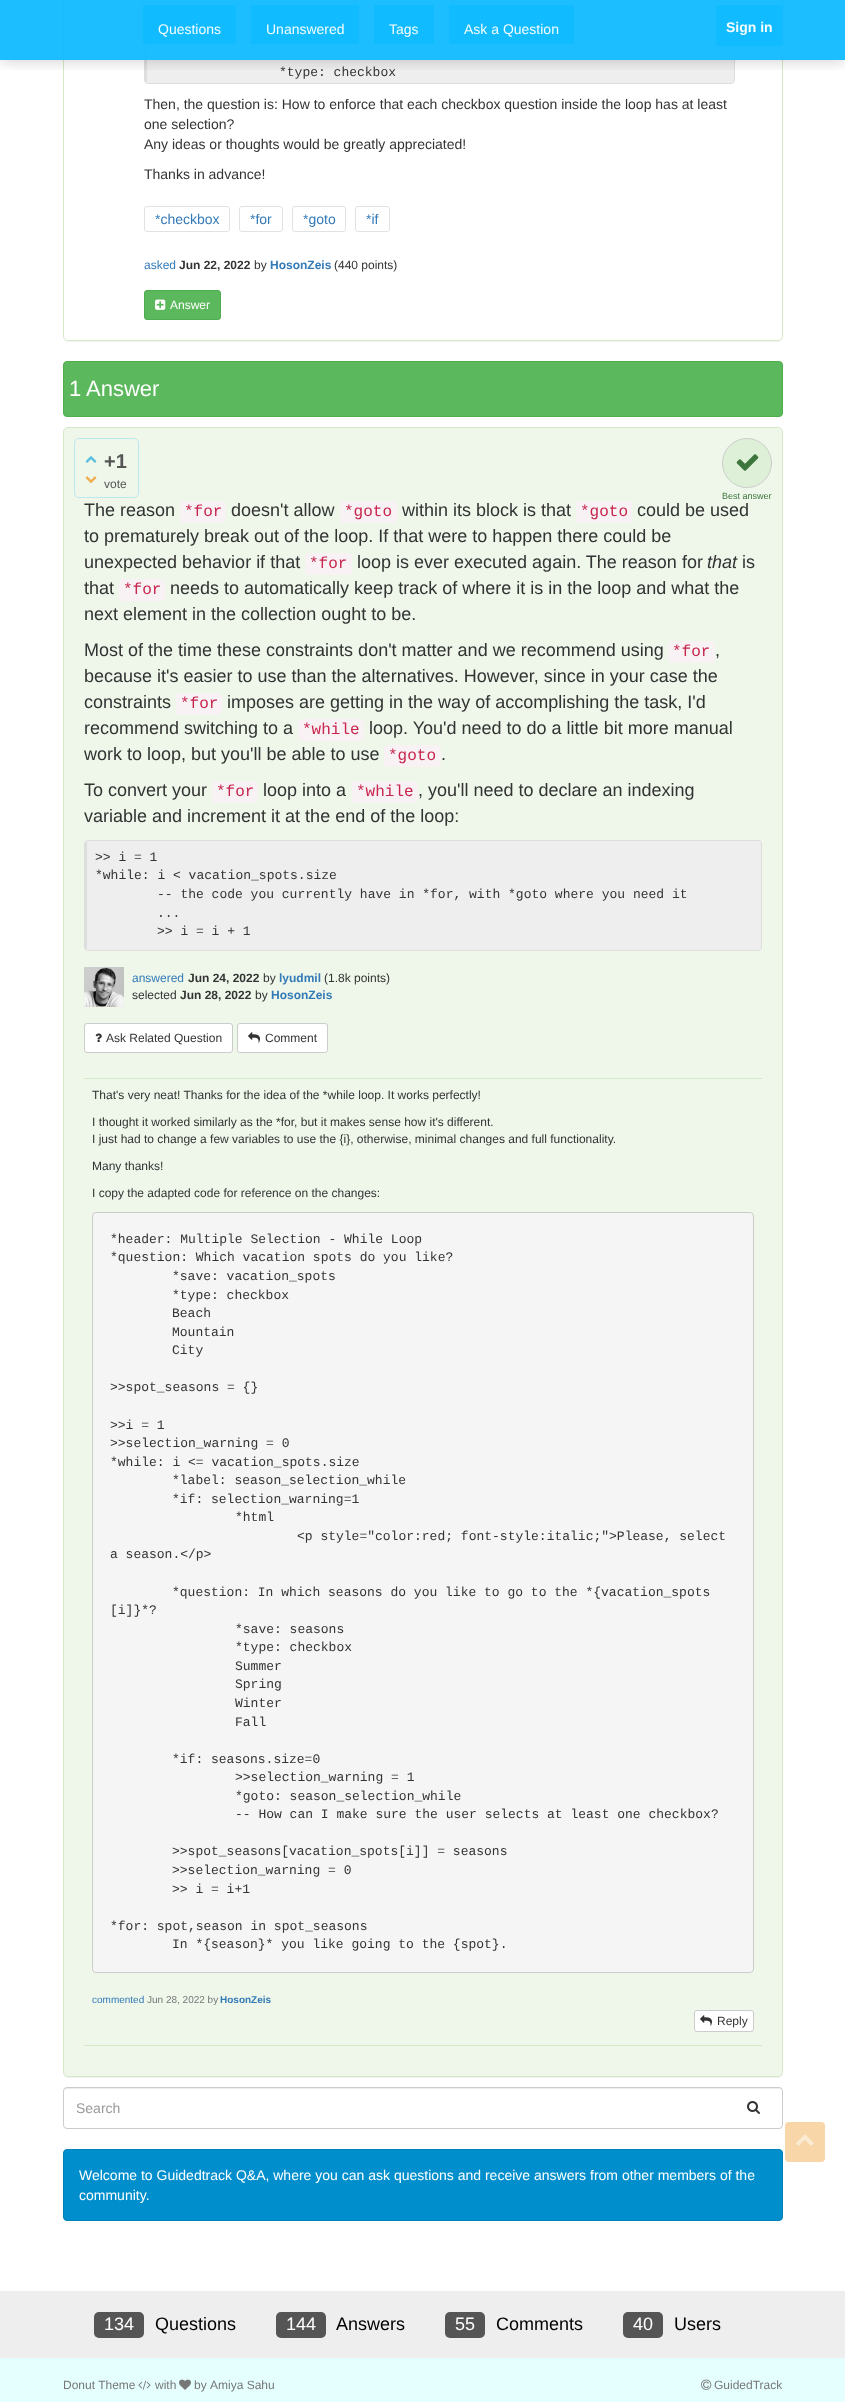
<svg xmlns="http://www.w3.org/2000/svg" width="845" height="2402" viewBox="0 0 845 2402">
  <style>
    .t1 { font: 14px Liberation Sans; fill: #f3fcff; }
    .t2 { font: bold 14px Liberation Sans; fill: #f3fcff; }
    .t3 { font: 13px Liberation Mono; fill: #333; }
    .t4 { font: 14px Liberation Sans; fill: #333; }
    .t5 { font: 14px Liberation Sans; fill: #337ab7; }
    .t6 { font: 12px Liberation Sans; fill: #337ab7; }
    .t7 { font: bold 12px Liberation Sans; fill: #333; }
    .t8 { font: 12px Liberation Sans; fill: #333; }
    .t9 { font: bold 12px Liberation Sans; fill: #337ab7; }
    .t10 { font: 12px Liberation Sans; fill: #fff; }
    .t11 { font: 22px Liberation Sans; fill: #fff; }
    .t12 { font: bold 20px Liberation Sans; fill: #555; }
    .t13 { font: 12px Liberation Sans; fill: #555; }
    .t14 { font: 9px Liberation Sans; fill: #3c763d; }
    .t15 { font: 18px Liberation Sans; fill: #333; }
    .t16 { font: 16px Liberation Mono; fill: #c7254e; }
    .t17 { font: italic 18px Liberation Sans; fill: #333; }
    .t18 { font: 10px Liberation Sans; fill: #337ab7; }
    .t19 { font: 10px Liberation Sans; fill: #777; }
    .t20 { font: bold 10px Liberation Sans; fill: #337ab7; }
    .t21 { font: 14px Liberation Sans; fill: #999; }
    .t22 { font: 14px Liberation Sans; fill: #fff; }
    .t23 { font: 18px Liberation Sans; fill: #fff; }
    .t24 { font: 18px Liberation Sans; fill: #000; }
    .t25 { font: 12px Liberation Sans; fill: #777; }
  </style>
  <defs>
    <clipPath id="clip1"><path d="M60 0H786V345H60ZM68-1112H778C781-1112 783-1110 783-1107V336C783 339 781 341 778 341H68C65 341 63 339 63 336V-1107C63-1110 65-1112 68-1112Z" clip-rule="evenodd"/></clipPath>
    <clipPath id="clip2"><rect x="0" y="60" width="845" height="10"/></clipPath>
  </defs>
  <rect width="100%" height="100%" fill="#fff"/>
  <g clip-path="url(#clip1)">
    <rect x="63" y="-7" width="720" height="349" rx="5" fill="#0000000d" filter="blur(0.5px)"/>
  </g>
  <rect x="63.5" y="-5.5" width="719" height="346" rx="4.5" fill="none" stroke="#d6e9c6"/>
  <path d="M148-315H731C733-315 734-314 734-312V80C734 82 733 83 731 83H148C147 83 147 82 147 80V-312C147-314 147-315 148-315Z" fill="#eee"/>
  <rect x="144.5" y="-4.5" width="590" height="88" rx="3.5" fill="none" stroke="#ddd"/>
  <rect x="145" y="0" width="2" height="82" fill="#ddd"/>
  <g clip-path="url(#clip2)">
    <rect x="0" y="1" width="845" height="60" fill="#00000030" filter="blur(7.5px)"/>
  </g>
  <rect x="0" y="0" width="845" height="60" fill="#10bafff2"/>
  <rect x="143" y="5" width="93" height="39" fill="#10bafff2"/>
  <text x="158" y="34" class="t1">Questions</text>
  <rect x="251" y="5" width="108" height="39" fill="#10bafff2"/>
  <text x="266" y="34" class="t1">Unanswered</text>
  <rect x="374" y="5" width="60" height="39" fill="#10bafff2"/>
  <text x="389" y="34" class="t1">Tags</text>
  <rect x="449" y="5" width="125" height="39" fill="#10bafff2"/>
  <text x="464" y="34" class="t1">Ask a Question</text>
  <rect x="716" y="5" width="67" height="41" rx="4" fill="#10bafff2"/>
  <text x="726" y="32" class="t2">Sign in</text>
  <text x="279" y="76" class="t3">*type: checkbox</text>
  <text x="144" y="109" class="t4">Then, the question is: How to enforce that each checkbox question inside the loop has at least</text>
  <text x="144" y="129" class="t4">one selection?</text>
  <text x="144" y="149" class="t4">Any ideas or thoughts would be greatly appreciated!</text>
  <text x="144" y="179" class="t4">Thanks in advance!</text>
  <rect x="144.5" y="206.5" width="85" height="25" rx="2.5" fill="none" stroke="#e2e2e2"/>
  <text x="155" y="224" class="t5">*checkbox</text>
  <rect x="239.5" y="206.5" width="43" height="25" rx="2.5" fill="none" stroke="#e2e2e2"/>
  <text x="250" y="224" class="t5">*for</text>
  <rect x="292.5" y="206.5" width="53" height="25" rx="2.5" fill="none" stroke="#e2e2e2"/>
  <text x="303" y="224" class="t5">*goto</text>
  <rect x="355.5" y="206.5" width="34" height="25" rx="2.5" fill="none" stroke="#e2e2e2"/>
  <text x="366" y="224" class="t5">*if</text>
  <text x="144" y="269" class="t6">asked</text>
  <text x="179" y="269" class="t7">Jun 22, 2022</text>
  <text x="254" y="269" class="t8">by</text>
  <text x="270" y="269" class="t9">HosonZeis</text>
  <text x="334" y="269" class="t8">(440 points)</text>
  <rect x="144.5" y="290.5" width="76" height="29" rx="2.5" fill="#5cb85c" stroke="#4cae4c"/>
  <image x="155" y="299" width="11" height="11" href="images/1.png"/>
  <text x="170" y="309" class="t10">Answer</text>
  <rect x="63.5" y="361.5" width="719" height="55" rx="3.5" fill="#5cb85c" stroke="#4cae4c"/>
  <text x="69" y="396" class="t11">1</text>
  <text x="86" y="396" class="t11">Answer</text>
  <rect x="63" y="428" width="720" height="1650" rx="5" fill="#0000000d" filter="blur(0.5px)"/>
  <rect x="63.5" y="427.5" width="719" height="1649" rx="4.5" fill="#eef7ea" stroke="#d6e9c6"/>
  <rect x="74.5" y="438.5" width="64" height="59" rx="4.5" fill="none" stroke="#bce8f1"/>
  <image x="85" y="456" width="12" height="7" href="images/2.png"/>
  <image x="85" y="476" width="12" height="8" href="images/3.png"/>
  <text x="104" y="468" class="t12">+1</text>
  <text x="104" y="488" class="t13">vote</text>
  <circle cx="747" cy="463" r="24.5" fill="#dff0d8" stroke="#ccc"/>
  <image x="736" y="454" width="23" height="17" href="images/4.png"/>
  <text x="722" y="499" class="t14">Best answer</text>
  <text x="84" y="516" class="t15">The reason</text>
  <rect x="180" y="501" width="46" height="22" rx="4" fill="#f9f2f4"/>
  <text x="184" y="516" class="t16">*for</text>
  <text x="231" y="516" class="t15">doesn't allow</text>
  <rect x="340" y="501" width="57" height="22" rx="4" fill="#f9f2f4"/>
  <text x="344" y="516" class="t16">*goto</text>
  <text x="402" y="516" class="t15">within its block is that</text>
  <rect x="576" y="501" width="56" height="22" rx="4" fill="#f9f2f4"/>
  <text x="580" y="516" class="t16">*goto</text>
  <text x="637" y="516" class="t15">could be used</text>
  <text x="84" y="542" class="t15">to prematurely break out of the loop. If that were to happen there could be</text>
  <text x="84" y="568" class="t15">unexpected behavior if that</text>
  <rect x="305" y="553" width="47" height="22" rx="4" fill="#f9f2f4"/>
  <text x="309" y="568" class="t16">*for</text>
  <text x="357" y="568" class="t15">loop is ever executed again. The reason for</text>
  <text x="707" y="568" class="t17">that</text>
  <text x="742" y="568" class="t15">is</text>
  <text x="84" y="594" class="t15">that</text>
  <rect x="119" y="579" width="46" height="22" rx="4" fill="#f9f2f4"/>
  <text x="123" y="594" class="t16">*for</text>
  <text x="170" y="594" class="t15">needs to automatically keep track of where it is in the loop and what the</text>
  <text x="84" y="620" class="t15">next element in the collection ought to be.</text>
  <text x="84" y="656" class="t15">Most of the time these constraints don't matter and we recommend using</text>
  <rect x="668" y="641" width="47" height="22" rx="4" fill="#f9f2f4"/>
  <text x="672" y="656" class="t16">*for</text>
  <text x="715" y="656" class="t15">,</text>
  <text x="84" y="682" class="t15">because it's easier to use than the alternatives. However, since in your case the</text>
  <text x="84" y="708" class="t15">constraints</text>
  <rect x="176" y="693" width="46" height="22" rx="4" fill="#f9f2f4"/>
  <text x="180" y="708" class="t16">*for</text>
  <text x="227" y="708" class="t15">imposes are getting in the way of accomplishing the task, I'd</text>
  <text x="84" y="734" class="t15">recommend switching to a</text>
  <rect x="298" y="719" width="66" height="22" rx="4" fill="#f9f2f4"/>
  <text x="302" y="734" class="t16">*while</text>
  <text x="369" y="734" class="t15">loop. You'd need to do a little bit more manual</text>
  <text x="84" y="760" class="t15">work to loop, but you'll be able to use</text>
  <rect x="384" y="745" width="57" height="22" rx="4" fill="#f9f2f4"/>
  <text x="388" y="760" class="t16">*goto</text>
  <text x="441" y="760" class="t15">.</text>
  <text x="84" y="796" class="t15">To convert your</text>
  <rect x="212" y="781" width="46" height="22" rx="4" fill="#f9f2f4"/>
  <text x="216" y="796" class="t16">*for</text>
  <text x="263" y="796" class="t15">loop into a</text>
  <rect x="352" y="781" width="66" height="22" rx="4" fill="#f9f2f4"/>
  <text x="356" y="796" class="t16">*while</text>
  <text x="418" y="796" class="t15">, you'll need to declare an indexing</text>
  <text x="84" y="822" class="t15">variable and increment it at the end of the loop:</text>
  <path d="M88 841H758C760 841 761 842 761 844V947C761 949 760 950 758 950H88C87 950 87 949 87 947V844C87 842 87 841 88 841Z" fill="#eee"/>
  <rect x="84.5" y="840.5" width="677" height="110" rx="3.5" fill="none" stroke="#ddd"/>
  <rect x="85" y="842" width="2" height="107" fill="#ddd"/>
  <text x="95" y="861" class="t3">&gt;&gt; i = 1</text>
  <text x="95" y="879" class="t3">*while: i &lt; vacation_spots.size</text>
  <text x="157" y="898" class="t3">-- the code you currently have in *for, with *goto where you need it</text>
  <text x="157" y="917" class="t3">...</text>
  <text x="157" y="935" class="t3">&gt;&gt; i = i + 1</text>
  <image x="84" y="967" width="40" height="40" href="images/5.png"/>
  <text x="132" y="982" class="t6">answered</text>
  <text x="188" y="982" class="t7">Jun 24, 2022</text>
  <text x="263" y="982" class="t8">by</text>
  <text x="279" y="982" class="t9">lyudmil</text>
  <text x="324" y="982" class="t8">(1.8k points)</text>
  <text x="132" y="999" class="t8">selected</text>
  <text x="180" y="999" class="t7">Jun 28, 2022</text>
  <text x="255" y="999" class="t8">by</text>
  <text x="271" y="999" class="t9">HosonZeis</text>
  <rect x="84.5" y="1023.5" width="148" height="29" rx="2.5" fill="#fff" stroke="#ccc"/>
  <image x="95" y="1033" width="7" height="9" href="images/6.png"/>
  <text x="106" y="1042" class="t8">Ask Related Question</text>
  <rect x="237.5" y="1023.5" width="90" height="29" rx="2.5" fill="#fff" stroke="#ccc"/>
  <image x="248" y="1032" width="12" height="11" href="images/7.png"/>
  <text x="265" y="1042" class="t8">Comment</text>
  <rect x="84" y="1078" width="678" height="1" fill="#d6e9c6"/>
  <rect x="84" y="2045" width="678" height="1" fill="#d6e9c6"/>
  <text x="92" y="1099" class="t8">That's very neat! Thanks for the idea of the *while loop. It works perfectly!</text>
  <text x="92" y="1126" class="t8">I thought it worked similarly as the *for, but it makes sense how it's different.</text>
  <text x="92" y="1143" class="t8">I just had to change a few variables to use the {i}, otherwise, minimal changes and full functionality.</text>
  <text x="92" y="1170" class="t8">Many thanks!</text>
  <text x="92" y="1197" class="t8">I copy the adapted code for reference on the changes:</text>
  <rect x="92.5" y="1212.5" width="661" height="760" rx="3.5" fill="#f5f5f5" stroke="#ccc"/>
  <text x="110" y="1243" class="t3">*header: Multiple Selection - While Loop</text>
  <text x="110" y="1261" class="t3">*question: Which vacation spots do you like?</text>
  <text x="172" y="1280" class="t3">*save: vacation_spots</text>
  <text x="172" y="1299" class="t3">*type: checkbox</text>
  <text x="172" y="1317" class="t3">Beach</text>
  <text x="172" y="1336" class="t3">Mountain</text>
  <text x="172" y="1354" class="t3">City</text>
  <text x="110" y="1391" class="t3">&gt;&gt;spot_seasons = {}</text>
  <text x="110" y="1429" class="t3">&gt;&gt;i = 1</text>
  <text x="110" y="1447" class="t3">&gt;&gt;selection_warning = 0</text>
  <text x="110" y="1466" class="t3">*while: i &lt;= vacation_spots.size</text>
  <text x="172" y="1484" class="t3">*label: season_selection_while</text>
  <text x="172" y="1503" class="t3">*if: selection_warning=1</text>
  <text x="235" y="1521" class="t3">*html</text>
  <text x="297" y="1540" class="t3">&lt;p style="color:red; font-style:italic;"&gt;Please, select</text>
  <text x="110" y="1558" class="t3">a season.&lt;/p&gt;</text>
  <text x="172" y="1596" class="t3">*question: In which seasons do you like to go to the *{vacation_spots</text>
  <text x="110" y="1614" class="t3">[i]}*?</text>
  <text x="235" y="1633" class="t3">*save: seasons</text>
  <text x="235" y="1651" class="t3">*type: checkbox</text>
  <text x="235" y="1670" class="t3">Summer</text>
  <text x="235" y="1688" class="t3">Spring</text>
  <text x="235" y="1707" class="t3">Winter</text>
  <text x="235" y="1726" class="t3">Fall</text>
  <text x="172" y="1763" class="t3">*if: seasons.size=0</text>
  <text x="235" y="1781" class="t3">&gt;&gt;selection_warning = 1</text>
  <text x="235" y="1800" class="t3">*goto: season_selection_while</text>
  <text x="235" y="1818" class="t3">-- How can I make sure the user selects at least one checkbox?</text>
  <text x="172" y="1855" class="t3">&gt;&gt;spot_seasons[vacation_spots[i]] = seasons</text>
  <text x="172" y="1874" class="t3">&gt;&gt;selection_warning = 0</text>
  <text x="172" y="1893" class="t3">&gt;&gt; i = i+1</text>
  <text x="110" y="1930" class="t3">*for: spot,season in spot_seasons</text>
  <text x="172" y="1948" class="t3">In *{season}* you like going to the {spot}.</text>
  <text x="92" y="2003" class="t18">commented</text>
  <text x="147" y="2003" class="t19">Jun 28, 2022 by</text>
  <text x="220" y="2003" class="t20">HosonZeis</text>
  <rect x="694.5" y="2010.5" width="59" height="21" rx="2.5" fill="#fff" stroke="#ccc"/>
  <image x="700" y="2015" width="12" height="11" href="images/7.png"/>
  <text x="717" y="2025" class="t8">Reply</text>
  <path d="M67 2089H779C781 2089 782 2090 782 2092C782 2090 781 2088 779 2088H67C65 2088 64 2090 64 2092C64 2090 65 2089 67 2089Z" fill="#ececec"/>
  <rect x="63.5" y="2087.5" width="719" height="41" rx="3.5" fill="none" stroke="#ccc"/>
  <text x="76" y="2113" class="t21">Search</text>
  <image x="747" y="2101" width="13" height="13" href="images/8.png"/>
  <rect x="63.5" y="2149.5" width="719" height="71" rx="3.5" fill="#008fcc" stroke="#0081b8"/>
  <text x="79" y="2180" class="t22">Welcome to Guidedtrack Q&amp;A, where you can ask questions and receive answers from other members of the</text>
  <text x="79" y="2200" class="t22">community.</text>
  <rect x="0" y="2291" width="845" height="67" fill="#eee"/>
  <rect x="94" y="2312" width="50" height="26" rx="5" fill="#555"/>
  <text x="104" y="2330" class="t23">134</text>
  <text x="155" y="2330" class="t24">Questions</text>
  <rect x="276" y="2312" width="50" height="26" rx="5" fill="#555"/>
  <text x="286" y="2330" class="t23">144</text>
  <text x="336" y="2330" class="t24">Answers</text>
  <rect x="445" y="2312" width="40" height="26" rx="5" fill="#555"/>
  <text x="455" y="2330" class="t23">55</text>
  <text x="496" y="2330" class="t24">Comments</text>
  <rect x="623" y="2312" width="40" height="26" rx="5" fill="#555"/>
  <text x="633" y="2330" class="t23">40</text>
  <text x="674" y="2330" class="t24">Users</text>
  <rect x="0" y="2358" width="845" height="44" fill="#e5ffff"/>
  <rect x="785" y="2122" width="40" height="40" rx="4" fill="#f8d6a7"/>
  <image x="796" y="2134" width="18" height="12" href="images/9.png"/>
  <text x="63" y="2389" class="t25">Donut Theme</text>
  <image x="138" y="2380" width="13" height="10" href="images/10.png"/>
  <text x="155" y="2389" class="t25">with</text>
  <image x="179" y="2379" width="12" height="11" href="images/11.png"/>
  <text x="194" y="2389" class="t25">by</text>
  <text x="210" y="2389" class="t25">Amiya Sahu</text>
  <image x="701" y="2379" width="11" height="11" href="images/12.png"/>
  <text x="714" y="2389" class="t25">GuidedTrack</text>
</svg>
